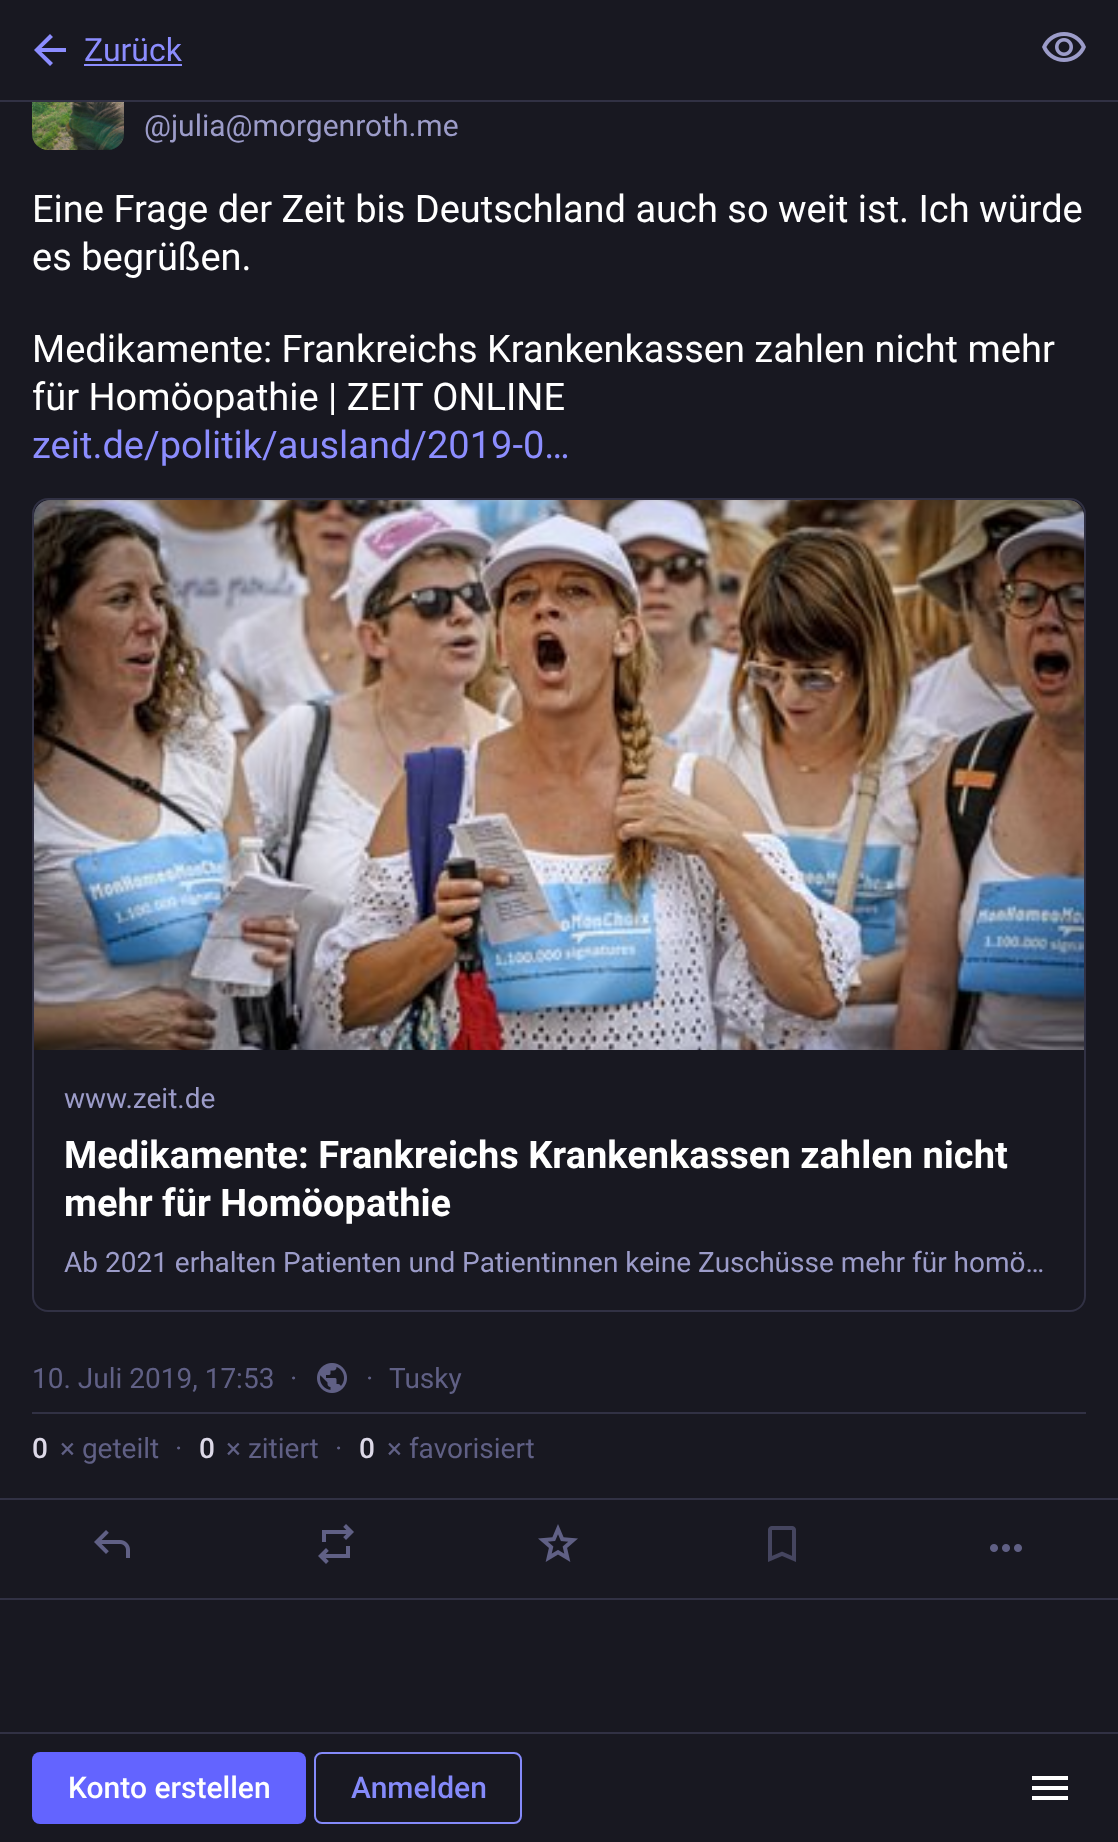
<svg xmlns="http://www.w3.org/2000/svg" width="1118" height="1842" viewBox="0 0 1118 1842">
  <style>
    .t1 { font: 32px Roboto; fill: #8c8dff; }
    .t2 { font: 30px Roboto; fill: #9c9cc9; }
    .t3 { font: 38px Roboto; fill: #fff; }
    .t4 { font: 38px Roboto; fill: #8c8dff; }
    .t5 { font: 28px Roboto; fill: #9c9cc9; }
    .t6 { font: bold 38px Roboto; fill: #fff; }
    .t7 { font: 28px Roboto; fill: #606085; }
    .t8 { font: 500 28px Roboto; fill: #ddd9e8; }
    .t9 { font: 500 30px Roboto; fill: #fff; }
    .t10 { font: 500 30px Roboto; fill: #858afa; }
  </style>
  <defs>
    <clipPath id="clip1"><rect x="34" y="500" width="1050" height="810" rx="14"/></clipPath>
  </defs>
  <rect width="100%" height="100%" fill="#181821"/>
  <rect x="32" y="58" width="92" height="92" rx="16" fill="#20202c"/>
  <rect x="32" y="58" width="92" height="42" fill="#181821"/>
  <rect x="0" y="100" width="1118" height="2" fill="#313144"/>
  <path d="M41.5 52L53 63L50 66L34 50L50 34L53 37L41.5 48H66V52Z" fill="#8c8dff"/>
  <text x="84" y="61" class="t1">Zurück</text>
  <rect x="84" y="64" width="98" height="2" fill="#8c8dff"/>
  <image x="1042" y="32" width="44" height="30" href="images/1.png"/>
  <image x="32" y="102" width="92" height="48" href="images/2.png"/>
  <text x="144" y="136" class="t2">@julia@morgenroth.me</text>
  <text x="32" y="222" class="t3">Eine Frage der Zeit bis Deutschland auch so weit ist. Ich würde</text>
  <text x="32" y="270" class="t3">es begrüßen.</text>
  <text x="32" y="362" class="t3">Medikamente: Frankreichs Krankenkassen zahlen nicht mehr</text>
  <text x="32" y="410" class="t3">für Homöopathie | ZEIT ONLINE</text>
  <text x="32" y="458" class="t4">zeit.de/politik/ausland/2019-0…</text>
  <rect x="33" y="499" width="1052" height="812" rx="15" fill="none" stroke="#313144" stroke-width="2"/>
  <g clip-path="url(#clip1)">
    <path d="M50 500H1068C1077 500 1084 507 1084 516V1050H34V516C34 507 41 500 50 500Z" fill="#3a3a50"/>
  </g>
  <image x="34" y="500" width="1050" height="550" href="images/3.png"/>
  <text x="64" y="1108" class="t5">www.zeit.de</text>
  <text x="64" y="1168" class="t6">Medikamente: Frankreichs Krankenkassen zahlen nicht</text>
  <text x="64" y="1216" class="t6">mehr für Homöopathie</text>
  <text x="64" y="1272" class="t5">Ab 2021 erhalten Patienten und Patientinnen keine Zuschüsse mehr für homö…</text>
  <rect x="32" y="1412" width="1054" height="2" fill="#313144"/>
  <text x="32" y="1388" class="t7">10. Juli 2019, 17:53</text>
  <text x="290" y="1388" class="t7">·</text>
  <image x="317" y="1363" width="30" height="30" href="images/4.png"/>
  <text x="366" y="1388" class="t7">·</text>
  <text x="389" y="1388" class="t7">Tusky</text>
  <text x="32" y="1458" class="t8">0</text>
  <text x="60" y="1458" class="t7">× geteilt</text>
  <text x="175" y="1458" class="t7">·</text>
  <text x="199" y="1458" class="t8">0</text>
  <text x="226" y="1458" class="t7">× zitiert</text>
  <text x="335" y="1458" class="t7">·</text>
  <text x="359" y="1458" class="t8">0</text>
  <text x="387" y="1458" class="t7">× favorisiert</text>
  <rect x="0" y="1498" width="1118" height="2" fill="#313144"/>
  <rect x="0" y="1598" width="1118" height="2" fill="#313144"/>
  <image x="94" y="1530" width="36" height="28" href="images/5.png"/>
  <image x="318" y="1524" width="36" height="40" href="images/6.png"/>
  <image x="538" y="1524" width="40" height="38" href="images/7.png"/>
  <image x="768" y="1526" width="28" height="36" href="images/8.png"/>
  <image x="990" y="1544" width="32" height="8" href="images/9.png"/>
  <rect x="0" y="1732" width="1118" height="2" fill="#313144"/>
  <rect x="32" y="1752" width="274" height="72" rx="8" fill="#6364ff"/>
  <text x="68" y="1798" class="t9">Konto erstellen</text>
  <rect x="315" y="1753" width="206" height="70" rx="7" fill="none" stroke="#858afa" stroke-width="2"/>
  <text x="351" y="1798" class="t10">Anmelden</text>
  <path d="M1032 1800V1796H1068V1800ZM1032 1790V1786H1068V1790ZM1032 1780V1776H1068V1780Z" fill="#fff"/>
</svg>
